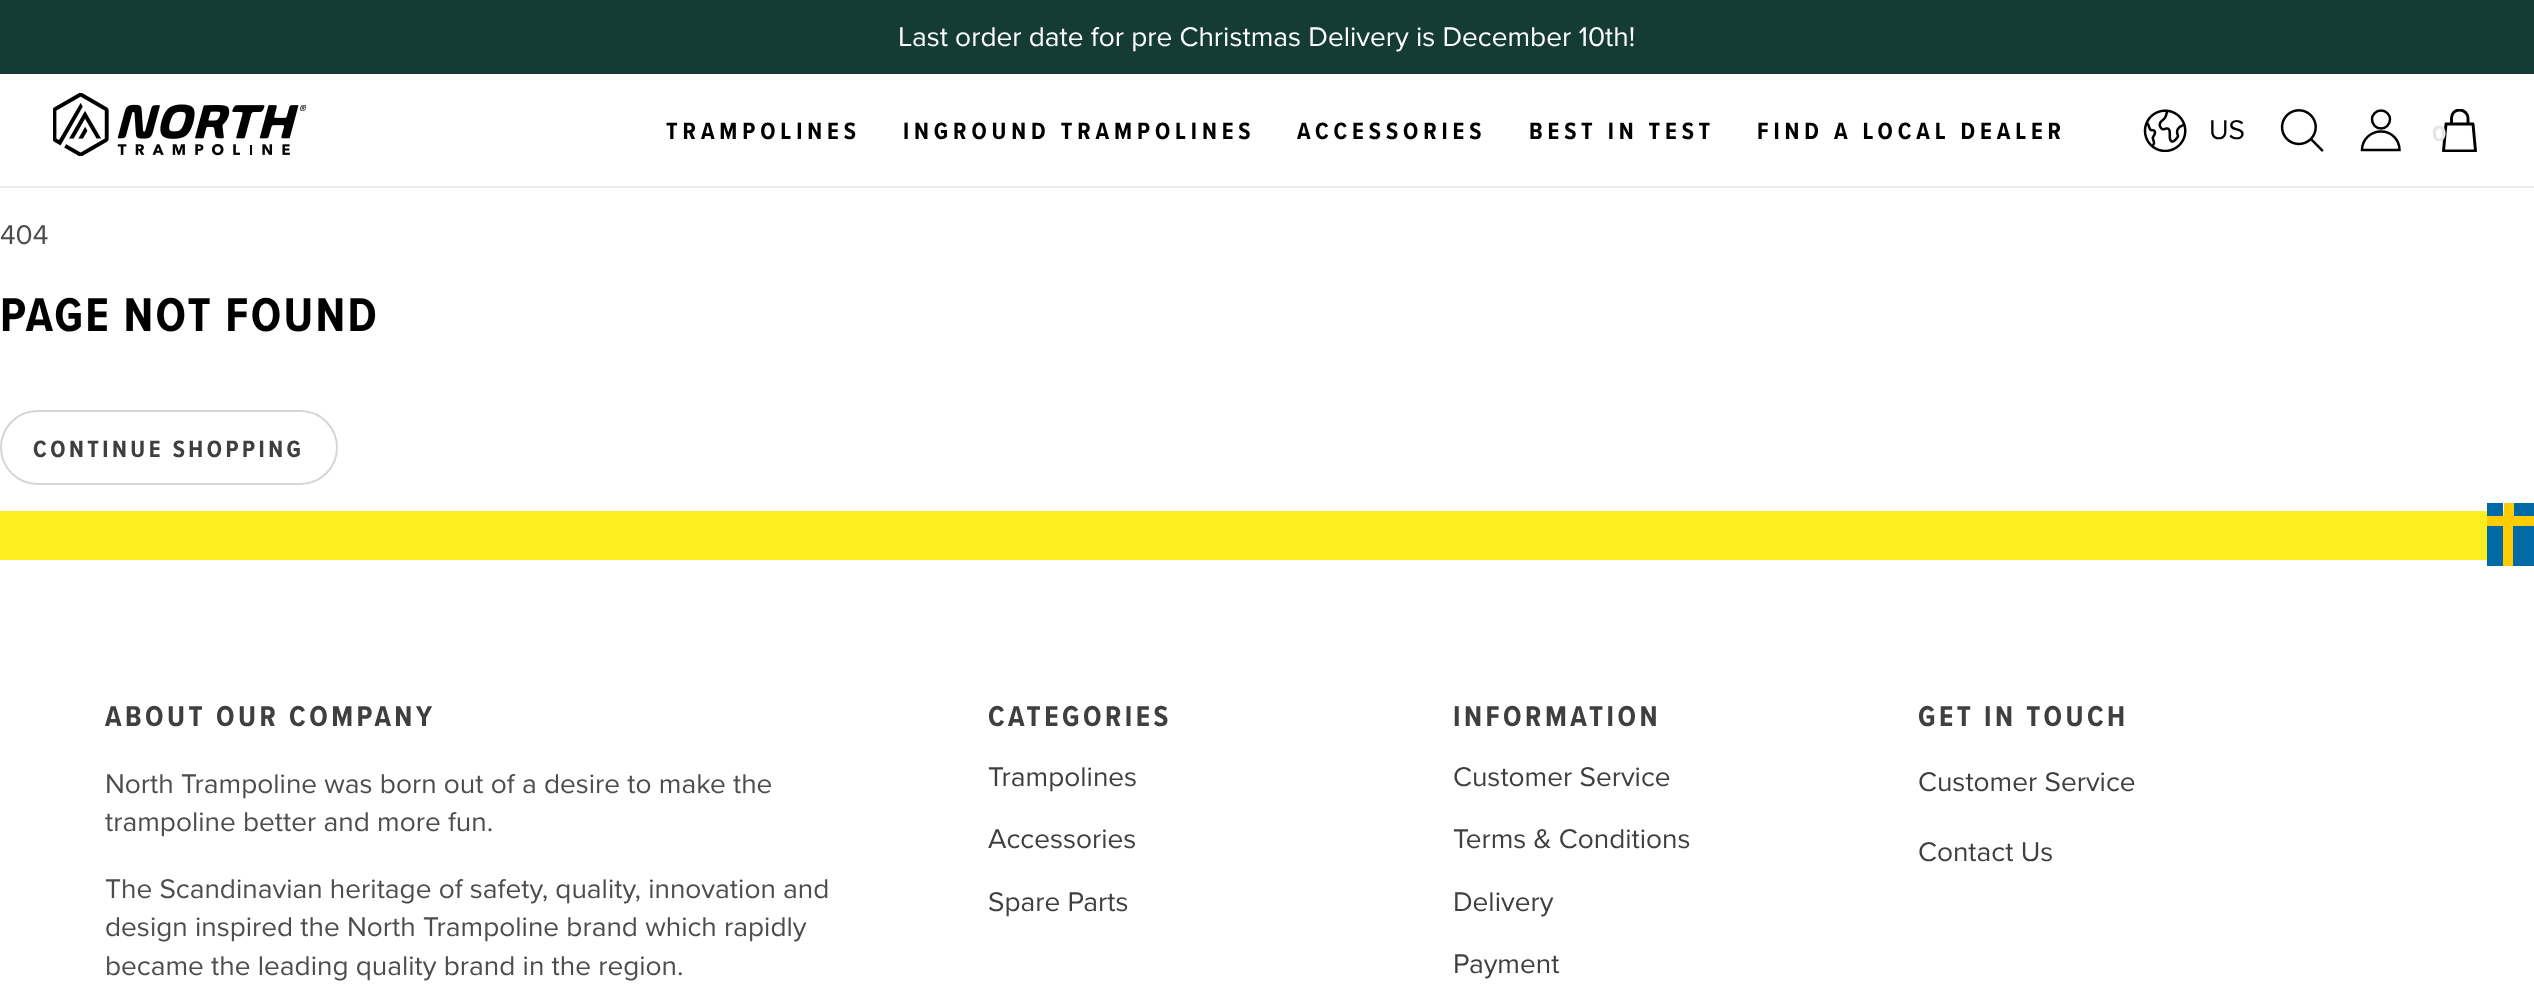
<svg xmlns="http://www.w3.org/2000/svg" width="2534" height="1005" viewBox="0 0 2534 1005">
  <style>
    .t1 { font: 28px Proxima Nova; fill: #fff; }
    .t2 { font: bold 24.5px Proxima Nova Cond; letter-spacing: 4.9px; fill: #000; }
    .t3 { font: 28px Proxima Nova; fill: #000; }
    .t4 { font: bold 23px Proxima Nova; fill: #e6e6e6; }
    .t5 { font: 28px Proxima Nova; fill: #4d4d4d; }
    .t6 { font: bold 49px Proxima Nova Cond; letter-spacing: 2.25px; fill: #000; }
    .t7 { font: bold 24.5px Proxima Nova Cond; letter-spacing: 3.5px; fill: #3f3f3f; }
    .t8 { font: bold 29.75px Proxima Nova Cond; letter-spacing: 3.5px; fill: #3f3f3f; }
    .t9 { font: 28px Proxima Nova; fill: #3f3f3f; }
  </style>
  <defs>
    <clipPath id="clip1"><rect x="2438" y="109" width="44" height="43"/></clipPath>
  </defs>
  <rect width="100%" height="100%" fill="#fff"/>
  <rect x="0" y="186" width="2534" height="2" fill="#eaebee"/>
  <rect x="0" y="0" width="2534" height="74" fill="#143b34"/>
  <text x="898" y="46" class="t1">Last order date for pre Christmas Delivery is December 10th!</text>
  <image x="53" y="93" width="253" height="63" href="images/1.png"/>
  <text x="666" y="139" class="t2">TRAMPOLINES</text>
  <text x="903" y="139" class="t2">INGROUND TRAMPOLINES</text>
  <text x="1297" y="139" class="t2">ACCESSORIES</text>
  <text x="1529" y="139" class="t2">BEST IN TEST</text>
  <text x="1757" y="139" class="t2">FIND A LOCAL DEALER</text>
  <image x="2143" y="109" width="44" height="43" href="images/2.png"/>
  <text x="2209" y="139" class="t3">US</text>
  <image x="2280" y="109" width="44" height="43" href="images/3.png"/>
  <circle cx="2381" cy="119.5" r="9" fill="none" stroke="#000" stroke-width="2.5"/>
  <path d="M2362 150C2362 139.5 2370.5 131.5 2381 131.5C2391.5 131.5 2399.5 139.5 2399.5 150Z" fill="none" stroke="#000" stroke-width="2.5"/>
  <g clip-path="url(#clip1)">
    <path d="M2475.5 151H2443.5L2446 124H2473ZM2451.5 124V118C2451.5 113.5 2455 110 2459.5 110C2464 110 2468 113.5 2468 118V124" fill="none" stroke="#000" stroke-width="2.9" stroke-linecap="round" stroke-linejoin="round"/>
  </g>
  <text x="2432" y="141" class="t4">0</text>
  <text x="0" y="244" class="t5">404</text>
  <text x="0" y="331" class="t6">PAGE NOT FOUND</text>
  <rect x="1" y="411" width="336" height="73" rx="36.5" fill="none" stroke="#d6d6d6" stroke-width="2"/>
  <text x="33" y="457" class="t7">CONTINUE SHOPPING</text>
  <rect x="0" y="511" width="2504" height="49" fill="#fcee20"/>
  <text x="105" y="726" class="t8">ABOUT OUR COMPANY</text>
  <text x="105" y="793" class="t5">North Trampoline was born out of a desire to make the</text>
  <text x="105" y="831" class="t5">trampoline better and more fun.</text>
  <text x="105" y="898" class="t5">The Scandinavian heritage of safety, quality, innovation and</text>
  <text x="105" y="936" class="t5">design inspired the North Trampoline brand which rapidly</text>
  <text x="105" y="975" class="t5">became the leading quality brand in the region.</text>
  <text x="988" y="726" class="t8">CATEGORIES</text>
  <text x="988" y="786" class="t9">Trampolines</text>
  <text x="988" y="848" class="t9">Accessories</text>
  <text x="988" y="911" class="t9">Spare Parts</text>
  <text x="1453" y="726" class="t8">INFORMATION</text>
  <text x="1453" y="786" class="t9">Customer Service</text>
  <text x="1453" y="848" class="t9">Terms &amp; Conditions</text>
  <text x="1453" y="911" class="t9">Delivery</text>
  <text x="1453" y="973" class="t9">Payment</text>
  <text x="1918" y="726" class="t8">GET IN TOUCH</text>
  <text x="1918" y="791" class="t9">Customer Service</text>
  <text x="1918" y="861" class="t9">Contact Us</text>
  <path d="M2503 503H2487V516H2503ZM2534 503H2513V516H2534Z" fill="#006aa7" fill-rule="evenodd"/>
  <rect x="2504" y="503" width="10" height="13" fill="#fecc00"/>
  <rect x="2487" y="516" width="47" height="10" fill="#fecc00"/>
  <rect x="2503" y="526" width="10" height="40" fill="#fecc00"/>
  <path d="M2503 526H2487V566H2503ZM2534 526H2513V566H2534Z" fill="#006aa7" fill-rule="evenodd"/>
</svg>
